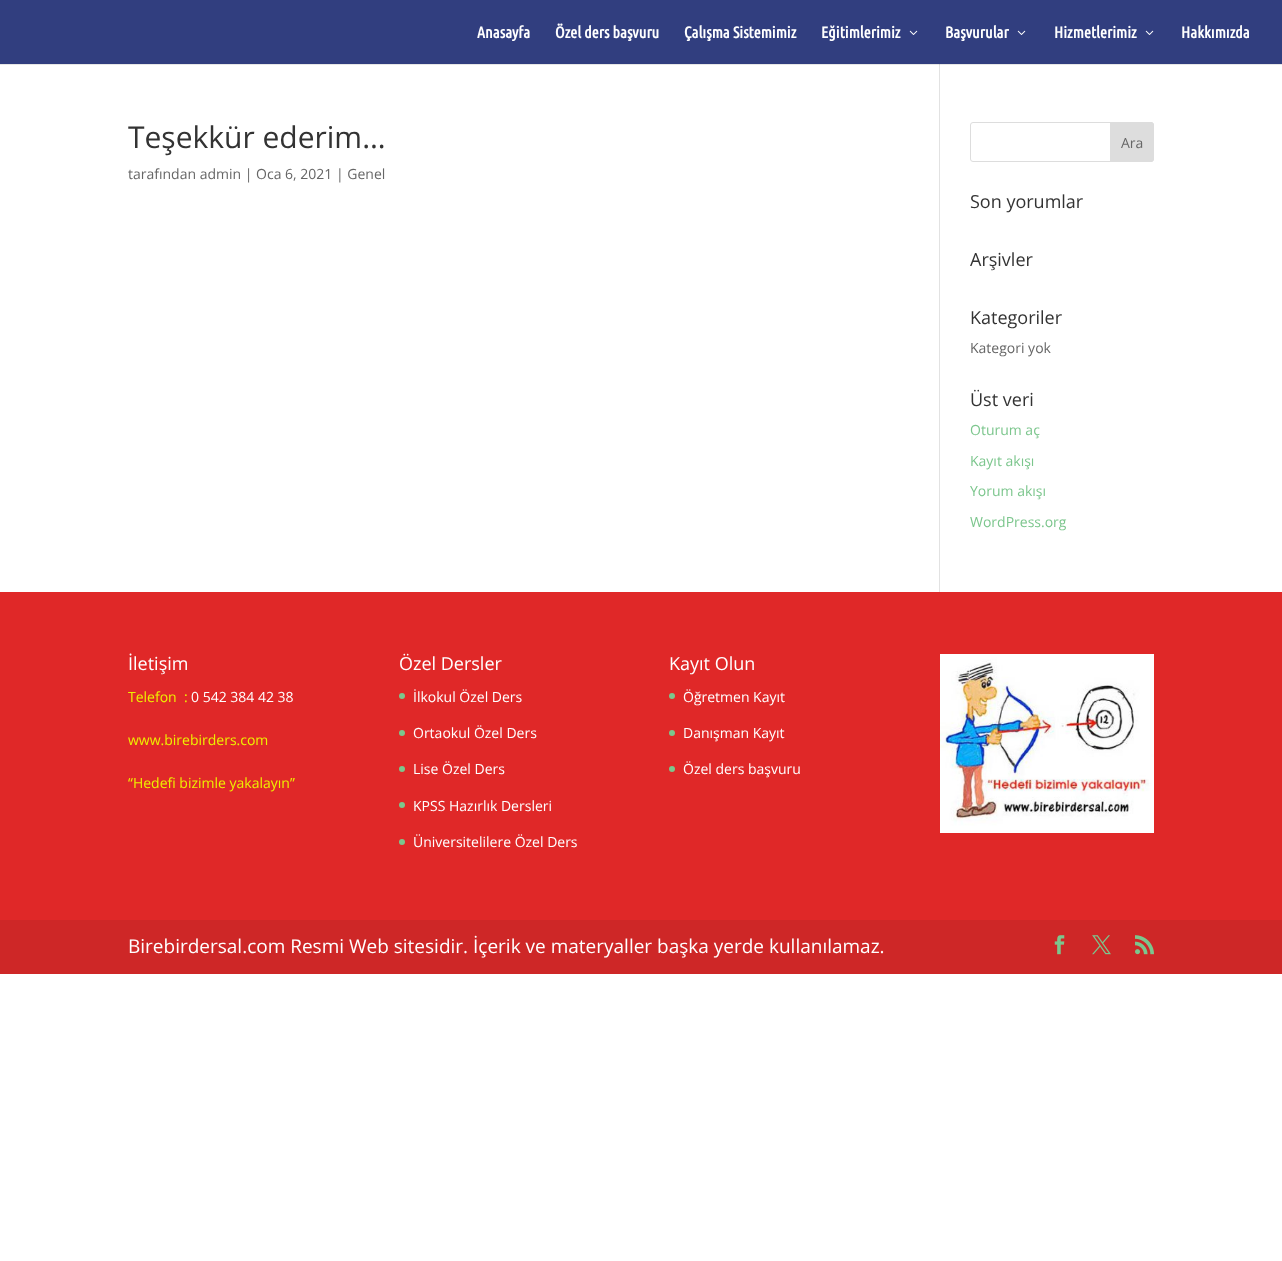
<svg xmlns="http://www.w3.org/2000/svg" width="1282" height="1261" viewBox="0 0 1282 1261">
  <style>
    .t1 { font: bold 16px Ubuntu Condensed; fill: #fff; }
    .t2 { font: 30px Open Sans; fill: #333; }
    .t3 { font: 14px Open Sans; fill: #666; }
    .t4 { font: 18px Open Sans; fill: #333; }
    .t5 { font: 14px Open Sans; fill: #7cc68d; }
    .t6 { font: 18px Open Sans; fill: #fff; }
    .t7 { font: 14px Open Sans; fill: #edf000; }
    .t8 { font: 14px Open Sans; fill: #fff; }
    .t9 { font: 19px Open Sans; fill: #fff; }
  </style>
  <rect width="100%" height="100%" fill="#fff"/>
  <rect x="0" y="64" width="1282" height="1" fill="#e6e6e6"/>
  <rect x="0" y="0" width="1282" height="64" fill="#313e7f"/>
  <text x="477" y="38" class="t1">Anasayfa</text>
  <text x="555" y="38" class="t1">Özel ders başvuru</text>
  <text x="684" y="38" class="t1">Çalışma Sistemimiz</text>
  <text x="821" y="38" class="t1">Eğitimlerimiz</text>
  <image x="909" y="30" width="9" height="5" href="images/1.png"/>
  <text x="945" y="38" class="t1">Başvurular</text>
  <image x="1017" y="30" width="9" height="5" href="images/1.png"/>
  <text x="1054" y="38" class="t1">Hizmetlerimiz</text>
  <image x="1145" y="30" width="9" height="5" href="images/1.png"/>
  <text x="1181" y="38" class="t1">Hakkımızda</text>
  <rect x="939" y="64" width="1" height="528" fill="#e2e2e2"/>
  <rect x="939" y="64" width="1" height="1" fill="#cbcbcb"/>
  <text x="128" y="148" class="t2">Teşekkür ederim…</text>
  <text x="128" y="179" class="t3">tarafından admin | Oca 6, 2021 | Genel</text>
  <rect x="970.5" y="122.5" width="183" height="39" rx="2.5" fill="none" stroke="#ddd"/>
  <path d="M1110.5 122.5H1151C1152.5 122.5 1153.5 123.5 1153.5 125V159C1153.5 160.5 1152.5 161.5 1151 161.5H1110.5Z" fill="#ddd" stroke="#ddd"/>
  <text x="1121" y="148" class="t3">Ara</text>
  <text x="970" y="208" class="t4">Son yorumlar</text>
  <text x="970" y="266" class="t4">Arşivler</text>
  <text x="970" y="324" class="t4">Kategoriler</text>
  <text x="970" y="353" class="t3">Kategori yok</text>
  <text x="970" y="406" class="t4">Üst veri</text>
  <text x="970" y="435" class="t5">Oturum aç</text>
  <text x="970" y="466" class="t5">Kayıt akışı</text>
  <text x="970" y="496" class="t5">Yorum akışı</text>
  <text x="970" y="527" class="t5">WordPress.org</text>
  <rect x="0" y="592" width="1282" height="328" fill="#e02828"/>
  <text x="128" y="670" class="t6">İletişim</text>
  <text x="128" y="702" class="t7" xml:space="preserve">Telefon  :</text>
  <text x="191" y="702" class="t8">0 542 384 42 38</text>
  <text x="128" y="745" class="t7">www.birebirders.com</text>
  <text x="128" y="788" class="t7">“Hedefi bizimle yakalayın”</text>
  <text x="399" y="670" class="t6">Özel Dersler</text>
  <circle cx="402" cy="696" r="3" fill="#7cc68d"/>
  <text x="413" y="702" class="t8">İlkokul Özel Ders</text>
  <circle cx="402" cy="733" r="3" fill="#7cc68d"/>
  <text x="413" y="738" class="t8">Ortaokul Özel Ders</text>
  <circle cx="402" cy="769" r="3" fill="#7cc68d"/>
  <text x="413" y="774" class="t8">Lise Özel Ders</text>
  <circle cx="402" cy="805" r="3" fill="#7cc68d"/>
  <text x="413" y="811" class="t8">KPSS Hazırlık Dersleri</text>
  <circle cx="402" cy="842" r="3" fill="#7cc68d"/>
  <text x="413" y="847" class="t8">Üniversitelilere Özel Ders</text>
  <text x="669" y="670" class="t6">Kayıt Olun</text>
  <circle cx="672" cy="696" r="3" fill="#7cc68d"/>
  <text x="683" y="702" class="t8">Öğretmen Kayıt</text>
  <circle cx="672" cy="733" r="3" fill="#7cc68d"/>
  <text x="683" y="738" class="t8">Danışman Kayıt</text>
  <circle cx="672" cy="769" r="3" fill="#7cc68d"/>
  <text x="683" y="774" class="t8">Özel ders başvuru</text>
  <image x="940" y="654" width="214" height="179" href="images/2.png"/>
  <rect x="0" y="920" width="1282" height="54" fill="#ce2727"/>
  <text x="128" y="953" class="t9">Birebirdersal.com Resmi Web sitesidir. İçerik ve materyaller başka yerde kullanılamaz.</text>
  <image x="1054" y="935" width="11" height="20" href="images/3.png"/>
  <image x="1092" y="935" width="19" height="20" href="images/4.png"/>
  <image x="1135" y="935" width="19" height="20" href="images/5.png"/>
</svg>
